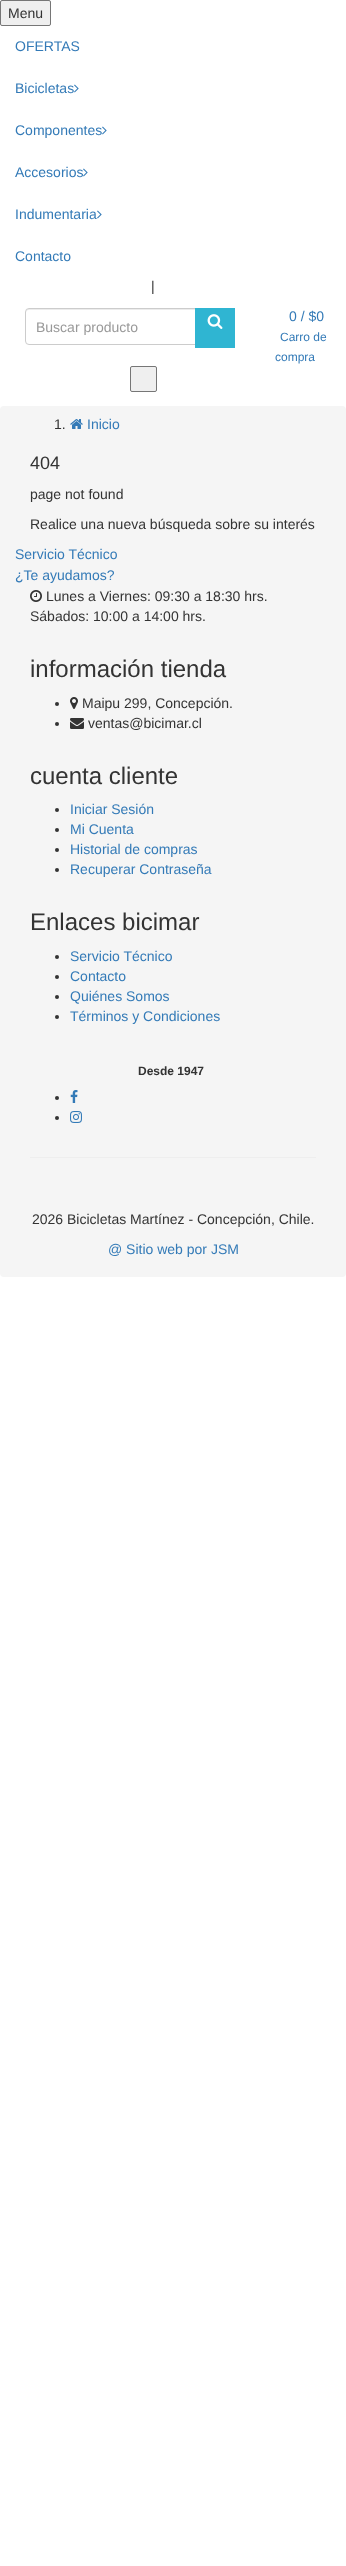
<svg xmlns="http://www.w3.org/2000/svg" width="346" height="2566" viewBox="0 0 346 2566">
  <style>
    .t1 { font: 14px Liberation Sans; fill: #333; }
    .t2 { font: 14px Liberation Sans; fill: #337ab7; }
    .t3 { font: 14px Liberation Sans; fill: #999; }
    .t4 { font: 12px Liberation Sans; fill: #337ab7; }
    .t5 { font: 18px Liberation Sans; fill: #333; }
    .t6 { font: 24px Liberation Sans; fill: #333; }
    .t7 { font: bold 12px Liberation Sans; fill: #333; }
  </style>
  <rect width="100%" height="100%" fill="#fff"/>
  <rect x="0.5" y="0.5" width="50" height="25" rx="1.5" fill="#efefef" stroke="#767676"/>
  <text x="8" y="18" class="t1">Menu</text>
  <text x="15" y="51" class="t2">OFERTAS</text>
  <text x="15" y="93" class="t2">Bicicletas</text>
  <image x="74" y="84" width="5" height="9" href="images/1.png"/>
  <text x="15" y="135" class="t2">Componentes</text>
  <image x="102" y="126" width="5" height="9" href="images/1.png"/>
  <text x="15" y="177" class="t2">Accesorios</text>
  <image x="83" y="168" width="5" height="9" href="images/1.png"/>
  <text x="15" y="219" class="t2">Indumentaria</text>
  <image x="97" y="210" width="5" height="9" href="images/1.png"/>
  <text x="15" y="261" class="t2">Contacto</text>
  <text x="151" y="291" class="t1">|</text>
  <path d="M29 310H231C233 310 234 311 234 313C234 311 233 309 231 309H28C26 310 26 311 26 313C26 311 27 310 29 310Z" fill="#ececec"/>
  <rect x="25.5" y="308.5" width="209" height="36" rx="3.5" fill="none" stroke="#ccc"/>
  <text x="36" y="332" class="t3">Buscar producto</text>
  <rect x="195" y="308" width="40" height="40" fill="#2fb5d2"/>
  <image x="207" y="314" width="16" height="15" href="images/2.png"/>
  <text x="289" y="321" class="t2">0 / $0</text>
  <text x="280" y="341" class="t4">Carro de</text>
  <text x="275" y="361" class="t4">compra</text>
  <rect x="130.5" y="366.5" width="26" height="25" rx="1.5" fill="#efefef" stroke="#767676"/>
  <rect x="0" y="406" width="346" height="871" rx="4" fill="#f5f5f5"/>
  <text x="54" y="429" class="t1">1.</text>
  <image x="70" y="419" width="13" height="10" href="images/3.png"/>
  <text x="87" y="429" class="t2">Inicio</text>
  <text x="30" y="469" class="t5">404</text>
  <text x="30" y="499" class="t1">page not found</text>
  <text x="30" y="529" class="t1">Realice una nueva búsqueda sobre su interés</text>
  <text x="15" y="559" class="t2">Servicio Técnico</text>
  <text x="15" y="580" class="t2">¿Te ayudamos?</text>
  <image x="30" y="590" width="12" height="12" href="images/4.png"/>
  <text x="46" y="601" class="t1">Lunes a Viernes: 09:30 a 18:30 hrs.</text>
  <text x="30" y="621" class="t1">Sábados: 10:00 a 14:00 hrs.</text>
  <text x="30" y="677" class="t6">información tienda</text>
  <circle cx="57" cy="704" r="2" fill="#333"/>
  <image x="70" y="697" width="8" height="12" href="images/5.png"/>
  <text x="82" y="708" class="t1">Maipu 299, Concepción.</text>
  <circle cx="57" cy="724" r="2" fill="#333"/>
  <image x="70" y="718" width="14" height="11" href="images/6.png"/>
  <text x="88" y="728" class="t1">ventas@bicimar.cl</text>
  <text x="30" y="784" class="t6">cuenta cliente</text>
  <circle cx="57" cy="810" r="2" fill="#333"/>
  <text x="70" y="814" class="t2">Iniciar Sesión</text>
  <circle cx="57" cy="830" r="2" fill="#333"/>
  <text x="70" y="834" class="t2">Mi Cuenta</text>
  <circle cx="57" cy="850" r="2" fill="#333"/>
  <text x="70" y="854" class="t2">Historial de compras</text>
  <circle cx="57" cy="870" r="2" fill="#333"/>
  <text x="70" y="874" class="t2">Recuperar Contraseña</text>
  <text x="30" y="930" class="t6">Enlaces bicimar</text>
  <circle cx="57" cy="957" r="2" fill="#333"/>
  <text x="70" y="961" class="t2">Servicio Técnico</text>
  <circle cx="57" cy="977" r="2" fill="#333"/>
  <text x="70" y="981" class="t2">Contacto</text>
  <circle cx="57" cy="997" r="2" fill="#333"/>
  <text x="70" y="1001" class="t2">Quiénes Somos</text>
  <circle cx="57" cy="1017" r="2" fill="#333"/>
  <text x="70" y="1021" class="t2">Términos y Condiciones</text>
  <text x="138" y="1075" class="t7">Desde 1947</text>
  <circle cx="57" cy="1098" r="2" fill="#333"/>
  <image x="70" y="1090" width="8" height="13" href="images/7.png"/>
  <circle cx="57" cy="1118" r="2" fill="#333"/>
  <image x="70" y="1111" width="12" height="12" href="images/8.png"/>
  <rect x="30" y="1157" width="286" height="1" fill="#eee"/>
  <text x="32" y="1224" class="t1">2026 Bicicletas Martínez - Concepción, Chile.</text>
  <text x="108" y="1254" class="t2">@ Sitio web por JSM</text>
</svg>
